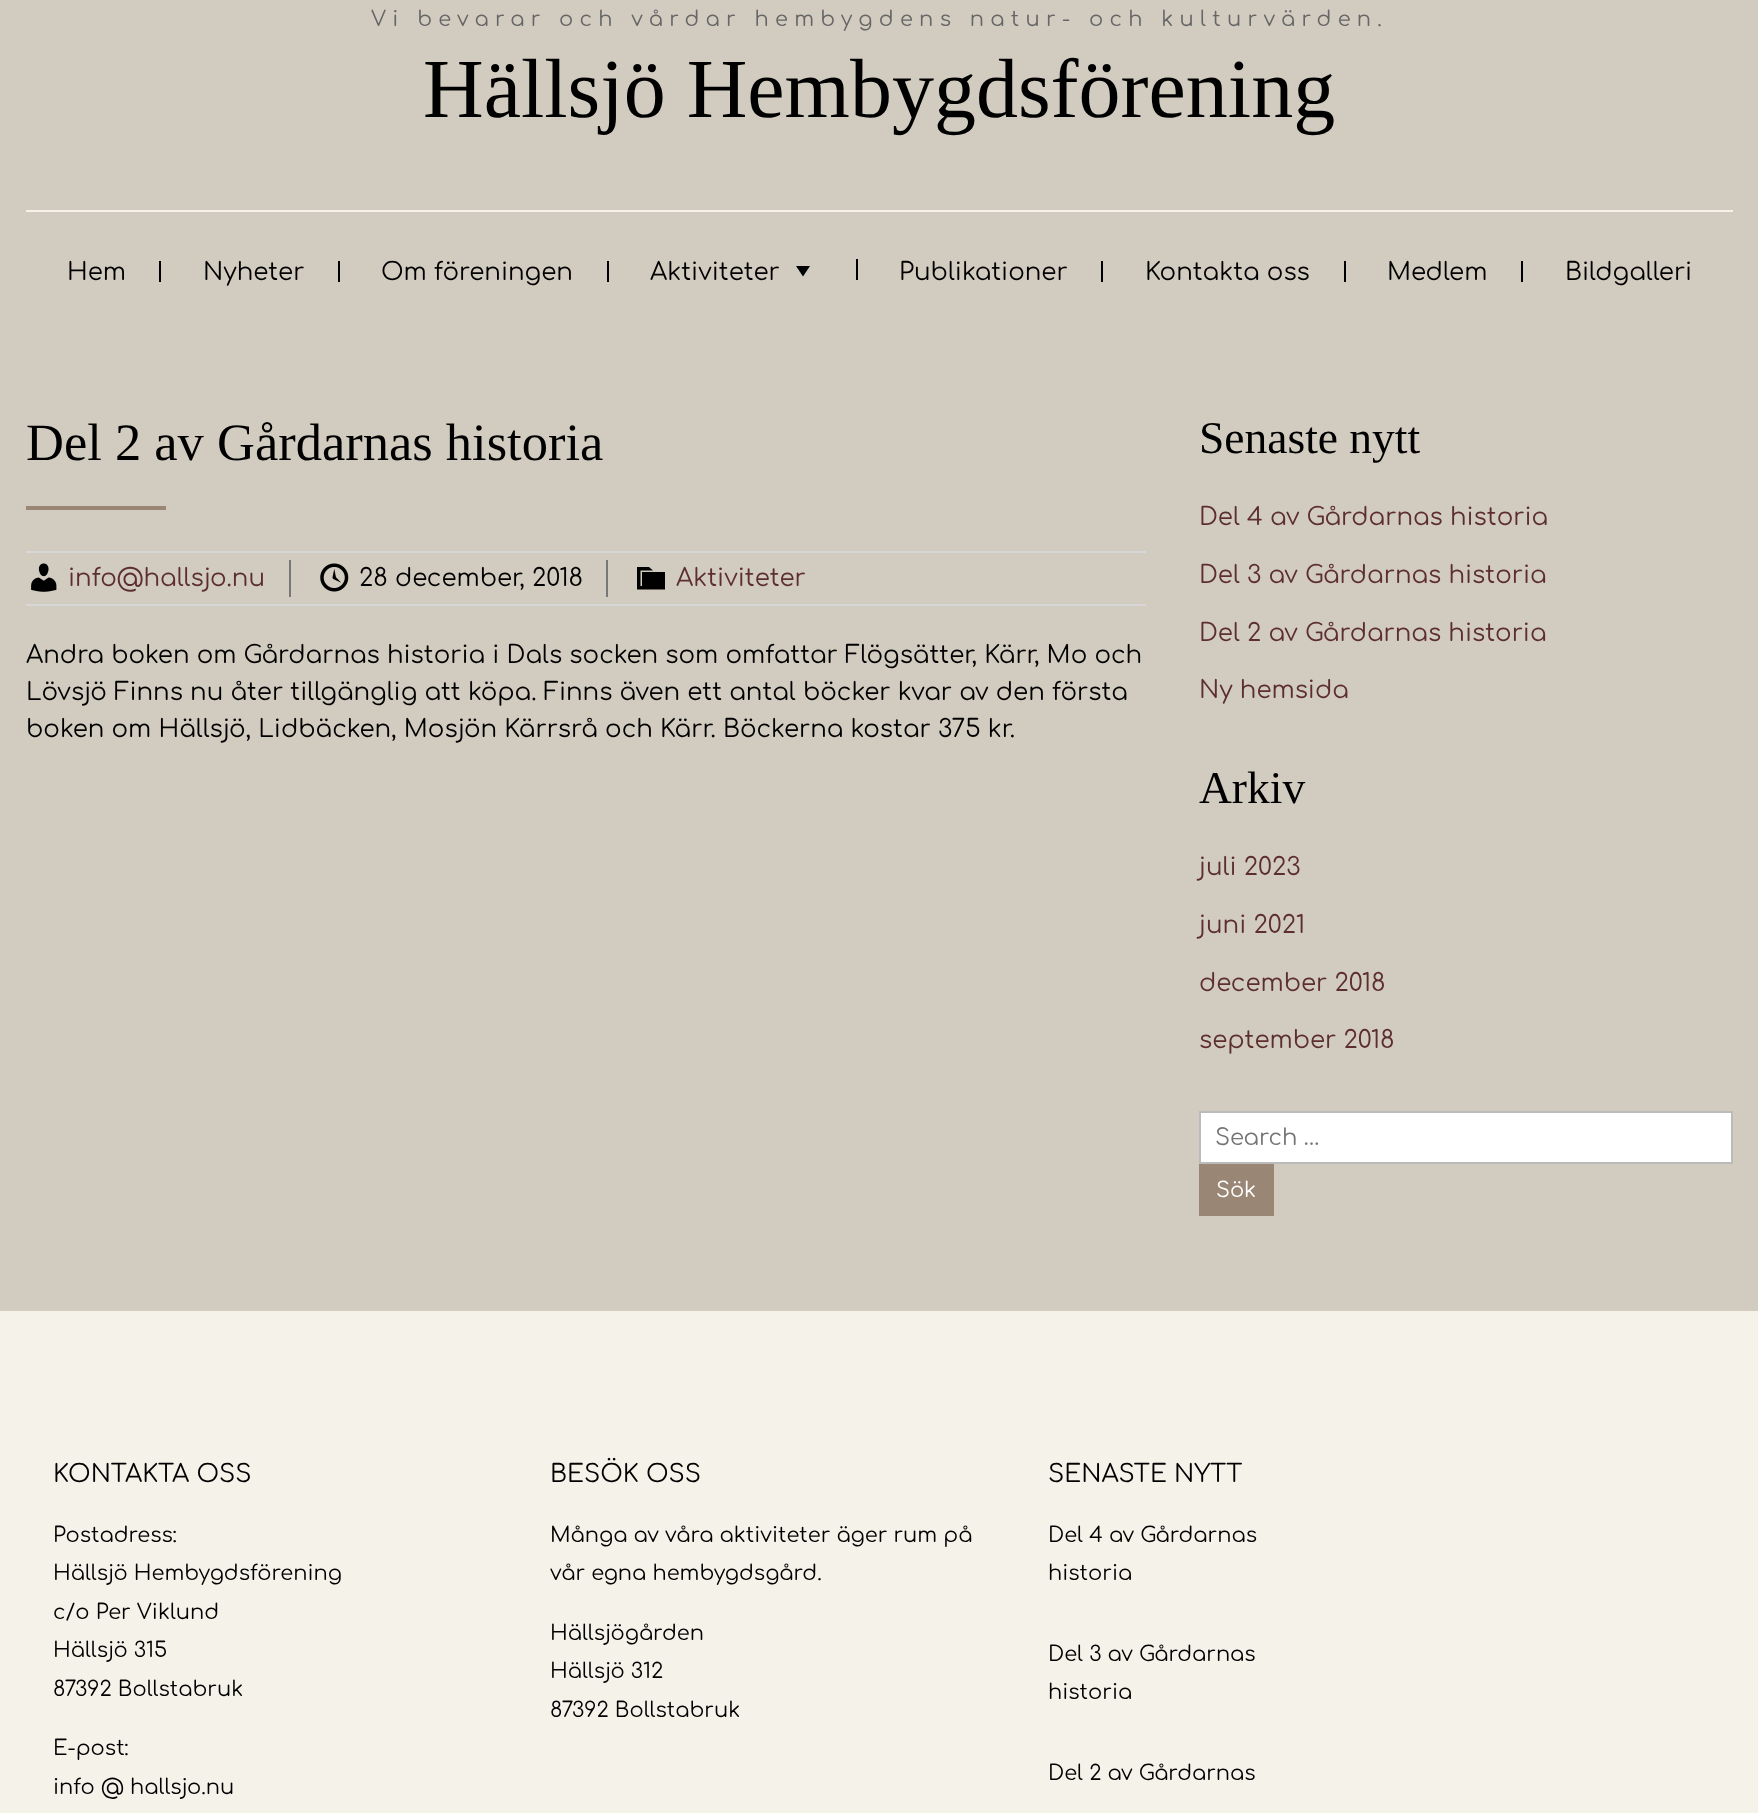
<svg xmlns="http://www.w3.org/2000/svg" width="1758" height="1813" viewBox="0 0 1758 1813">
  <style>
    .t1 { font: 21px Comfortaa; letter-spacing: 6.3px; fill: #666; }
    .t2 { font: 84px Liberation Serif; fill: #000; }
    .t3 { font: 24.5px Comfortaa; fill: #000; }
    .t4 { font: 52.5px Liberation Serif; fill: #000; }
    .t5 { font: 24.5px Comfortaa; fill: #5d2e2e; }
    .t6 { font: 45.5px Liberation Serif; fill: #000; }
    .t7 { font: 22.75px Comfortaa; fill: #757575; }
    .t8 { font: 21px Comfortaa; fill: #fff; }
    .t9 { font: 21px Comfortaa; fill: #000; }
  </style>
  <rect width="100%" height="100%" fill="#d2ccc0"/>
  <text x="371" y="26" class="t1">Vi bevarar och vårdar hembygdens natur- och kulturvärden.</text>
  <text x="423" y="117" class="t2">Hällsjö Hembygdsförening</text>
  <rect x="26" y="210" width="1707" height="2" fill="#f5f2e9"/>
  <text x="67" y="280" class="t3">Hem</text>
  <rect x="159" y="261" width="2" height="21" fill="#000"/>
  <text x="203" y="280" class="t3">Nyheter</text>
  <rect x="338" y="261" width="2" height="21" fill="#000"/>
  <text x="381" y="280" class="t3">Om föreningen</text>
  <rect x="607" y="261" width="2" height="21" fill="#000"/>
  <text x="650" y="280" class="t3">Aktiviteter</text>
  <path d="M810 266L803 276.5L796 266Z" fill="#000"/>
  <rect x="856" y="259" width="2" height="21" fill="#000"/>
  <text x="899" y="280" class="t3">Publikationer</text>
  <rect x="1101" y="261" width="2" height="21" fill="#000"/>
  <text x="1145" y="280" class="t3">Kontakta oss</text>
  <rect x="1344" y="261" width="2" height="21" fill="#000"/>
  <text x="1387" y="280" class="t3">Medlem</text>
  <rect x="1521" y="261" width="2" height="21" fill="#000"/>
  <text x="1565" y="280" class="t3">Bildgalleri</text>
  <text x="26" y="460" class="t4">Del 2 av Gårdarnas historia</text>
  <rect x="26" y="506" width="140" height="4" fill="#998675"/>
  <rect x="26" y="551" width="1120" height="2" fill="#d7d7d7"/>
  <rect x="26" y="604" width="1120" height="2" fill="#d7d7d7"/>
  <image x="31" y="563" width="26" height="29" href="images/1.png"/>
  <text x="68" y="586" class="t5">info@hallsjo.nu</text>
  <rect x="289" y="560" width="2" height="37" fill="#777"/>
  <image x="320" y="563" width="29" height="29" href="images/2.png"/>
  <text x="359" y="586" class="t3">28 december, 2018</text>
  <rect x="606" y="560" width="2" height="37" fill="#777"/>
  <path d="M642 572H665V589.5H637V567H649L653 570.5H640.5V586H642Z" fill="#000"/>
  <text x="676" y="586" class="t5">Aktiviteter</text>
  <text x="26" y="663" class="t3">Andra boken om Gårdarnas historia i Dals socken som omfattar Flögsätter, Kärr, Mo och</text>
  <text x="26" y="700" class="t3">Lövsjö Finns nu åter tillgänglig att köpa. Finns även ett antal böcker kvar av den första</text>
  <text x="26" y="737" class="t3">boken om Hällsjö, Lidbäcken, Mosjön Kärrsrå och Kärr. Böckerna kostar 375 kr.</text>
  <text x="1199" y="453" class="t6">Senaste nytt</text>
  <text x="1199" y="525" class="t5">Del 4 av Gårdarnas historia</text>
  <text x="1199" y="583" class="t5">Del 3 av Gårdarnas historia</text>
  <text x="1199" y="641" class="t5">Del 2 av Gårdarnas historia</text>
  <text x="1199" y="698" class="t5">Ny hemsida</text>
  <text x="1199" y="803" class="t6">Arkiv</text>
  <text x="1199" y="875" class="t5">juli 2023</text>
  <text x="1199" y="933" class="t5">juni 2021</text>
  <text x="1199" y="991" class="t5">december 2018</text>
  <text x="1199" y="1048" class="t5">september 2018</text>
  <rect x="1200" y="1112" width="532" height="51" fill="#fff" stroke="#bbb" stroke-width="2"/>
  <text x="1215" y="1145" class="t7">Search …</text>
  <rect x="1199" y="1164" width="75" height="52" fill="#998675"/>
  <text x="1216" y="1197" class="t8">Sök</text>
  <rect x="0" y="1311" width="1758" height="502" fill="#f5f2e9"/>
  <text x="53" y="1482" class="t3">KONTAKTA OSS</text>
  <text x="53" y="1542" class="t9">Postadress:</text>
  <text x="53" y="1580" class="t9">Hällsjö Hembygdsförening</text>
  <text x="53" y="1619" class="t9">c/o Per Viklund</text>
  <text x="53" y="1657" class="t9">Hällsjö 315</text>
  <text x="53" y="1696" class="t9">87392 Bollstabruk</text>
  <text x="53" y="1755" class="t9">E-post:</text>
  <text x="53" y="1794" class="t9">info @ hallsjo.nu</text>
  <text x="550" y="1482" class="t3">BESÖK OSS</text>
  <text x="550" y="1542" class="t9">Många av våra aktiviteter äger rum på</text>
  <text x="550" y="1580" class="t9">vår egna hembygdsgård.</text>
  <text x="550" y="1640" class="t9">Hällsjögården</text>
  <text x="550" y="1678" class="t9">Hällsjö 312</text>
  <text x="550" y="1717" class="t9">87392 Bollstabruk</text>
  <text x="1048" y="1482" class="t3">SENASTE NYTT</text>
  <text x="1048" y="1542" class="t9">Del 4 av Gårdarnas</text>
  <text x="1048" y="1580" class="t9">historia</text>
  <text x="1048" y="1661" class="t9">Del 3 av Gårdarnas</text>
  <text x="1048" y="1699" class="t9">historia</text>
  <text x="1048" y="1780" class="t9">Del 2 av Gårdarnas</text>
</svg>
